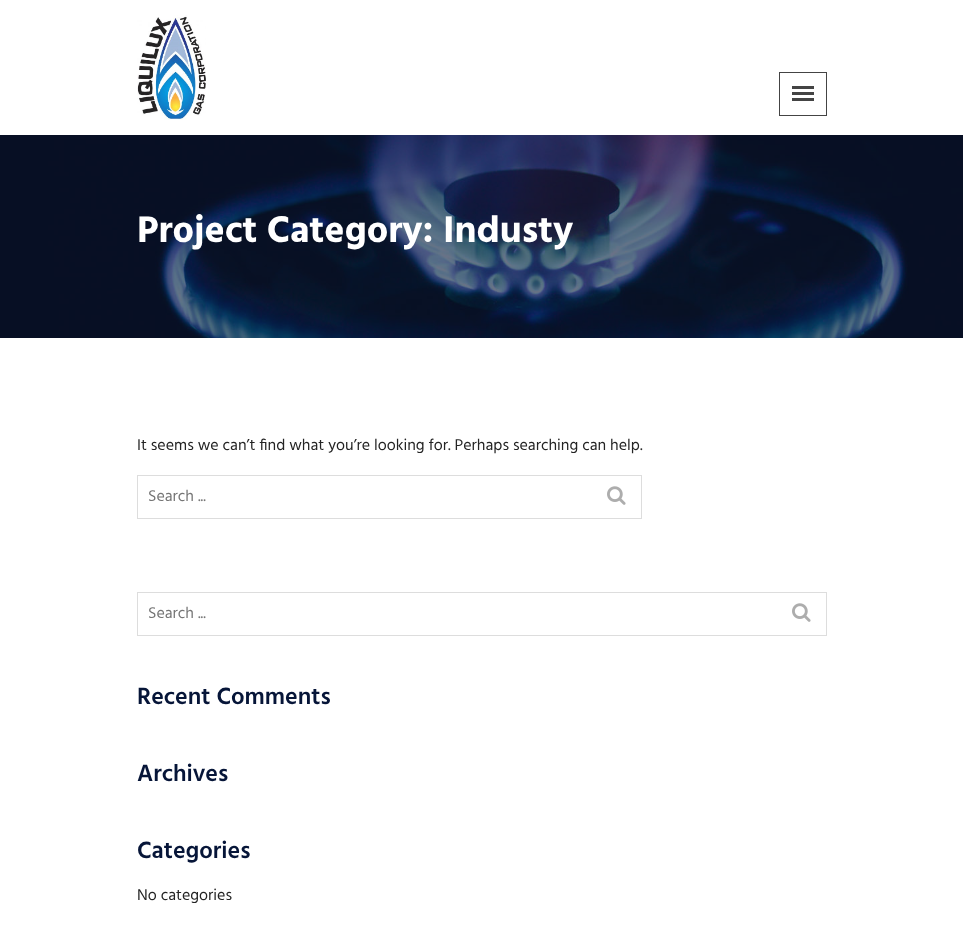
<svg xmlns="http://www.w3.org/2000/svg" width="963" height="928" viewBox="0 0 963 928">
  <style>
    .t1 { font: bold 38px Hind; fill: #fff; }
    .t2 { font: 16px Hind; fill: #242424; }
    .t3 { font: 16px Hind; fill: #757575; }
    .t4 { font: 600 24px Hind; fill: #061538; }
  </style>
  <rect width="100%" height="100%" fill="#fff"/>
  <image x="137" y="15" width="69" height="105" href="images/1.png"/>
  <rect x="779.5" y="72.5" width="47" height="43" fill="none" stroke="#444"/>
  <rect x="792" y="86" width="22" height="3" fill="#444"/>
  <rect x="792" y="92" width="22" height="3" fill="#444"/>
  <rect x="792" y="98" width="22" height="3" fill="#444"/>
  <image x="0" y="135" width="963" height="203" href="images/2.png"/>
  <text x="137" y="242" class="t1">Project Category: Industy</text>
  <text x="137" y="450" class="t2">It seems we can’t find what you’re looking for. Perhaps searching can help.</text>
  <rect x="137.5" y="475.5" width="504" height="43" fill="none" stroke="#ddd"/>
  <text x="148" y="501" class="t3">Search ...</text>
  <image x="607" y="486" width="19" height="19" href="images/3.png"/>
  <rect x="137.5" y="592.5" width="689" height="43" fill="none" stroke="#ddd"/>
  <text x="148" y="618" class="t3">Search ...</text>
  <image x="792" y="603" width="19" height="19" href="images/3.png"/>
  <text x="137" y="704" class="t4">Recent Comments</text>
  <text x="137" y="781" class="t4">Archives</text>
  <text x="137" y="858" class="t4">Categories</text>
  <text x="137" y="900" class="t2">No categories</text>
</svg>
